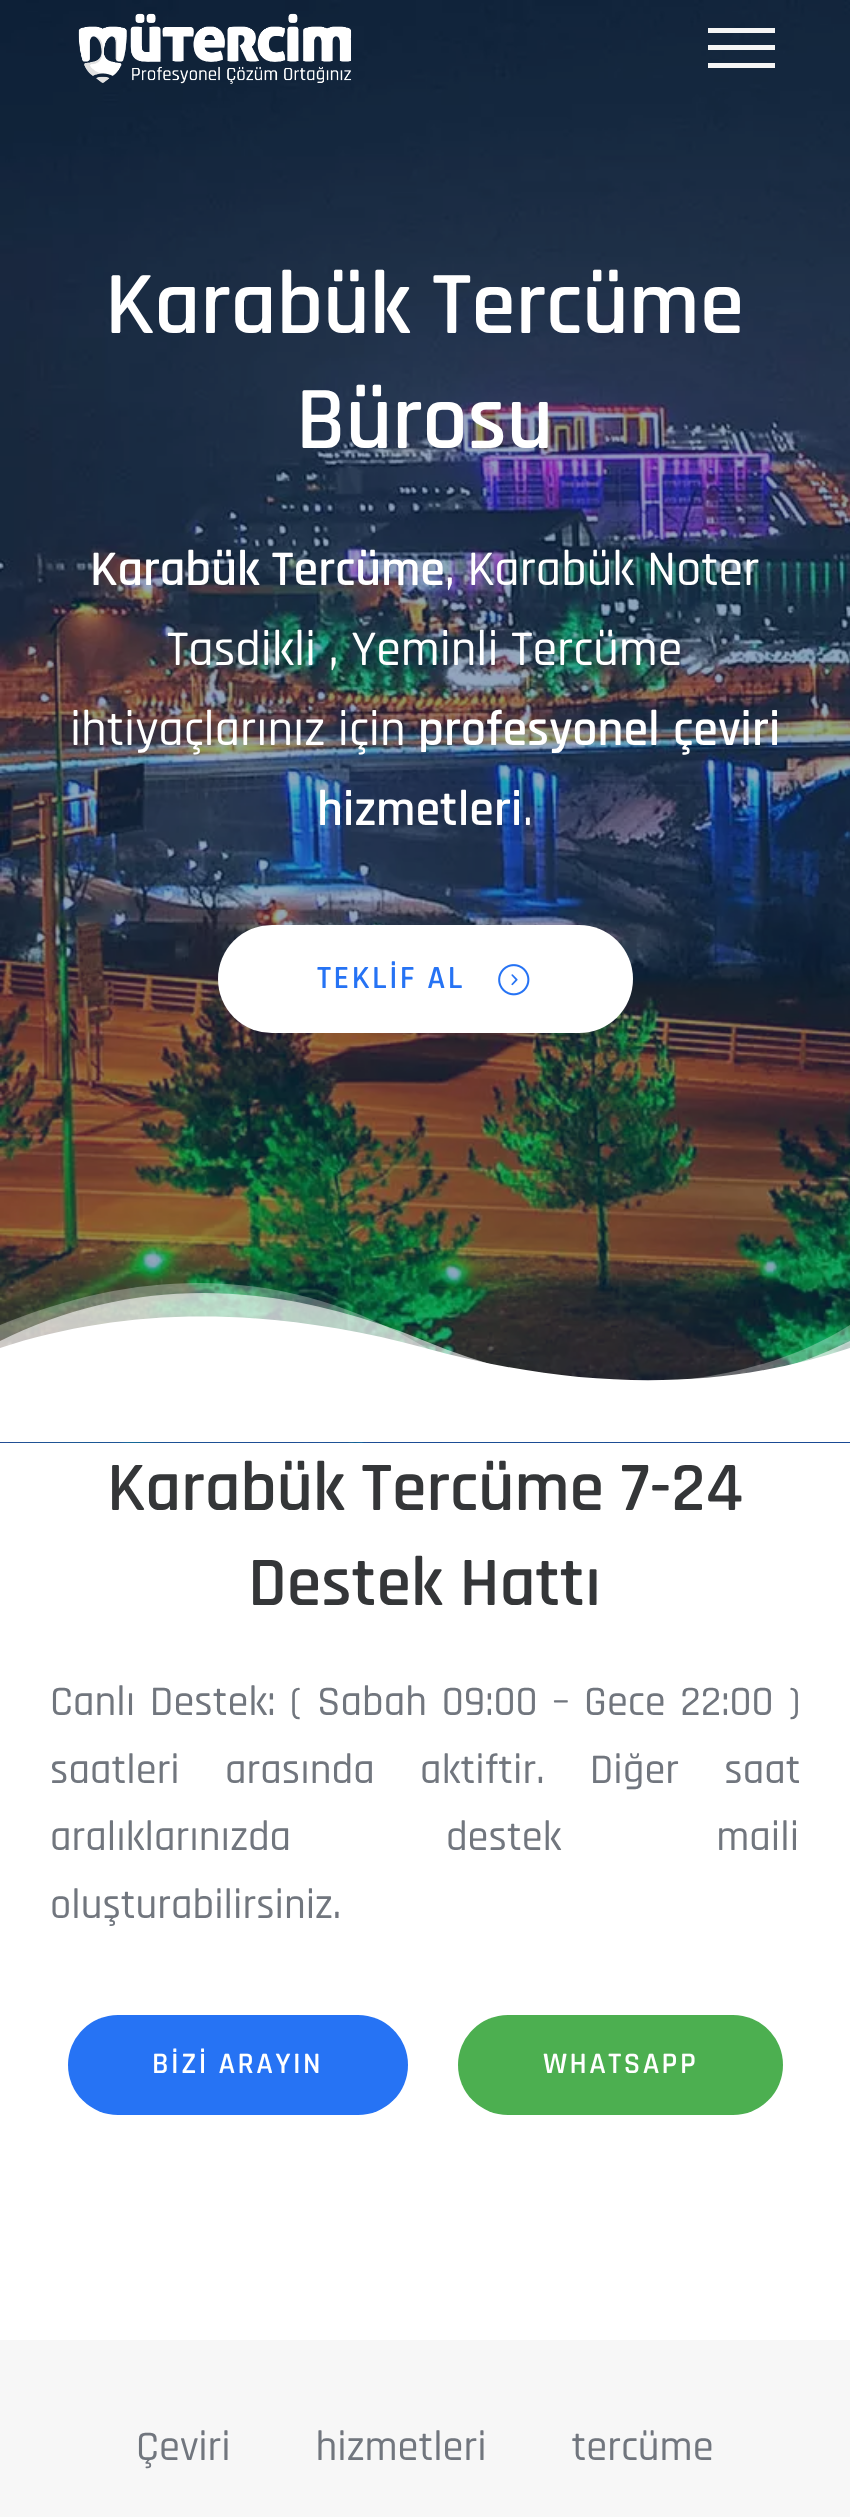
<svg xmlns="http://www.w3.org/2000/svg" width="850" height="2517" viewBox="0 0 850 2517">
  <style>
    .t1 { font: 600 90px Rajdhani; fill: #fff; }
    .t2 { font: 600 50px Rajdhani; fill: #fff; }
    .t3 { font: 500 50px Rajdhani; fill: #fff; }
    .t4 { font: 600 32.5px Rajdhani; letter-spacing: 2.5px; fill: #2673f4; }
    .t5 { font: 600 70px Rajdhani; fill: #343638; }
    .t6 { font: 500 42.5px Rajdhani; fill: #71767e; }
    .t7 { font: 600 30px Rajdhani; letter-spacing: 2.5px; fill: #fff; }
  </style>
  <rect width="100%" height="100%" fill="#fff"/>
  <rect x="0" y="1442" width="850" height="1" fill="#1857b7"/>
  <image x="0" y="0" width="850" height="1443" href="images/2.png"/>
  <image x="78" y="13" width="274" height="71" href="images/1.png"/>
  <rect x="708" y="28" width="67" height="5" fill="#f5f5f5"/>
  <rect x="708" y="45" width="67" height="5" fill="#f5f5f5"/>
  <rect x="708" y="63" width="67" height="5" fill="#f5f5f5"/>
  <text x="105" y="333" class="t1">Karabük Tercüme</text>
  <text x="296" y="448" class="t1">Bürosu</text>
  <text x="90" y="585" class="t2">Karabük Tercüme</text>
  <text x="445" y="585" class="t3">, Karabük Noter</text>
  <text x="167" y="665" class="t3">Tasdikli , Yeminli Tercüme</text>
  <text x="70" y="745" class="t3">ihtiyaçlarınız için</text>
  <text x="418" y="745" class="t2">profesyonel</text>
  <text x="673" y="745" class="t2">çeviri</text>
  <text x="317" y="825" class="t2">hizmetleri</text>
  <text x="523" y="825" class="t3">.</text>
  <rect x="218" y="925" width="415" height="108" rx="54" fill="#fff"/>
  <text x="317" y="988" class="t4">TEKLİF AL</text>
  <image x="498" y="964" width="32" height="32" href="images/3.png"/>
  <path d="M850 1325C760 1382 631 1398 463 1372C322 1272 168 1256 0 1325V1435H850Z" fill="#ffffff4d" fill-rule="evenodd"/>
  <path d="M850 1341C721 1404 579 1404 425 1341C271 1277 129 1277 0 1341V1435H850Z" fill="#ffffff99" fill-rule="evenodd"/>
  <path d="M850 1348C722 1391 581 1391 425 1348C269 1306 128 1306 0 1348V1442H850Z" fill="#fff" fill-rule="evenodd"/>
  <text x="107" y="1510" class="t5">Karabük Tercüme 7-24</text>
  <text x="248" y="1605" class="t5">Destek Hattı</text>
  <text x="50" y="1715" word-spacing="3.75" class="t6">Canlı Destek: ( Sabah 09:00 – Gece 22:00 )</text>
  <text x="50" y="1783" word-spacing="34.5" class="t6">saatleri arasında aktiftir. Diğer saat</text>
  <text x="50" y="1850" word-spacing="144" class="t6">aralıklarınızda destek maili</text>
  <text x="50" y="1918" class="t6">oluşturabilirsiniz.</text>
  <rect x="68" y="2015" width="340" height="100" rx="50" fill="#2673f4"/>
  <text x="152" y="2073" class="t7">BİZİ ARAYIN</text>
  <rect x="458" y="2015" width="325" height="100" rx="50" fill="#4caf50"/>
  <text x="543" y="2073" class="t7">WHATSAPP</text>
  <rect x="0" y="2340" width="850" height="177" fill="#f7f7f7"/>
  <text x="136" y="2460" word-spacing="74" class="t6">Çeviri hizmetleri tercüme</text>
</svg>
